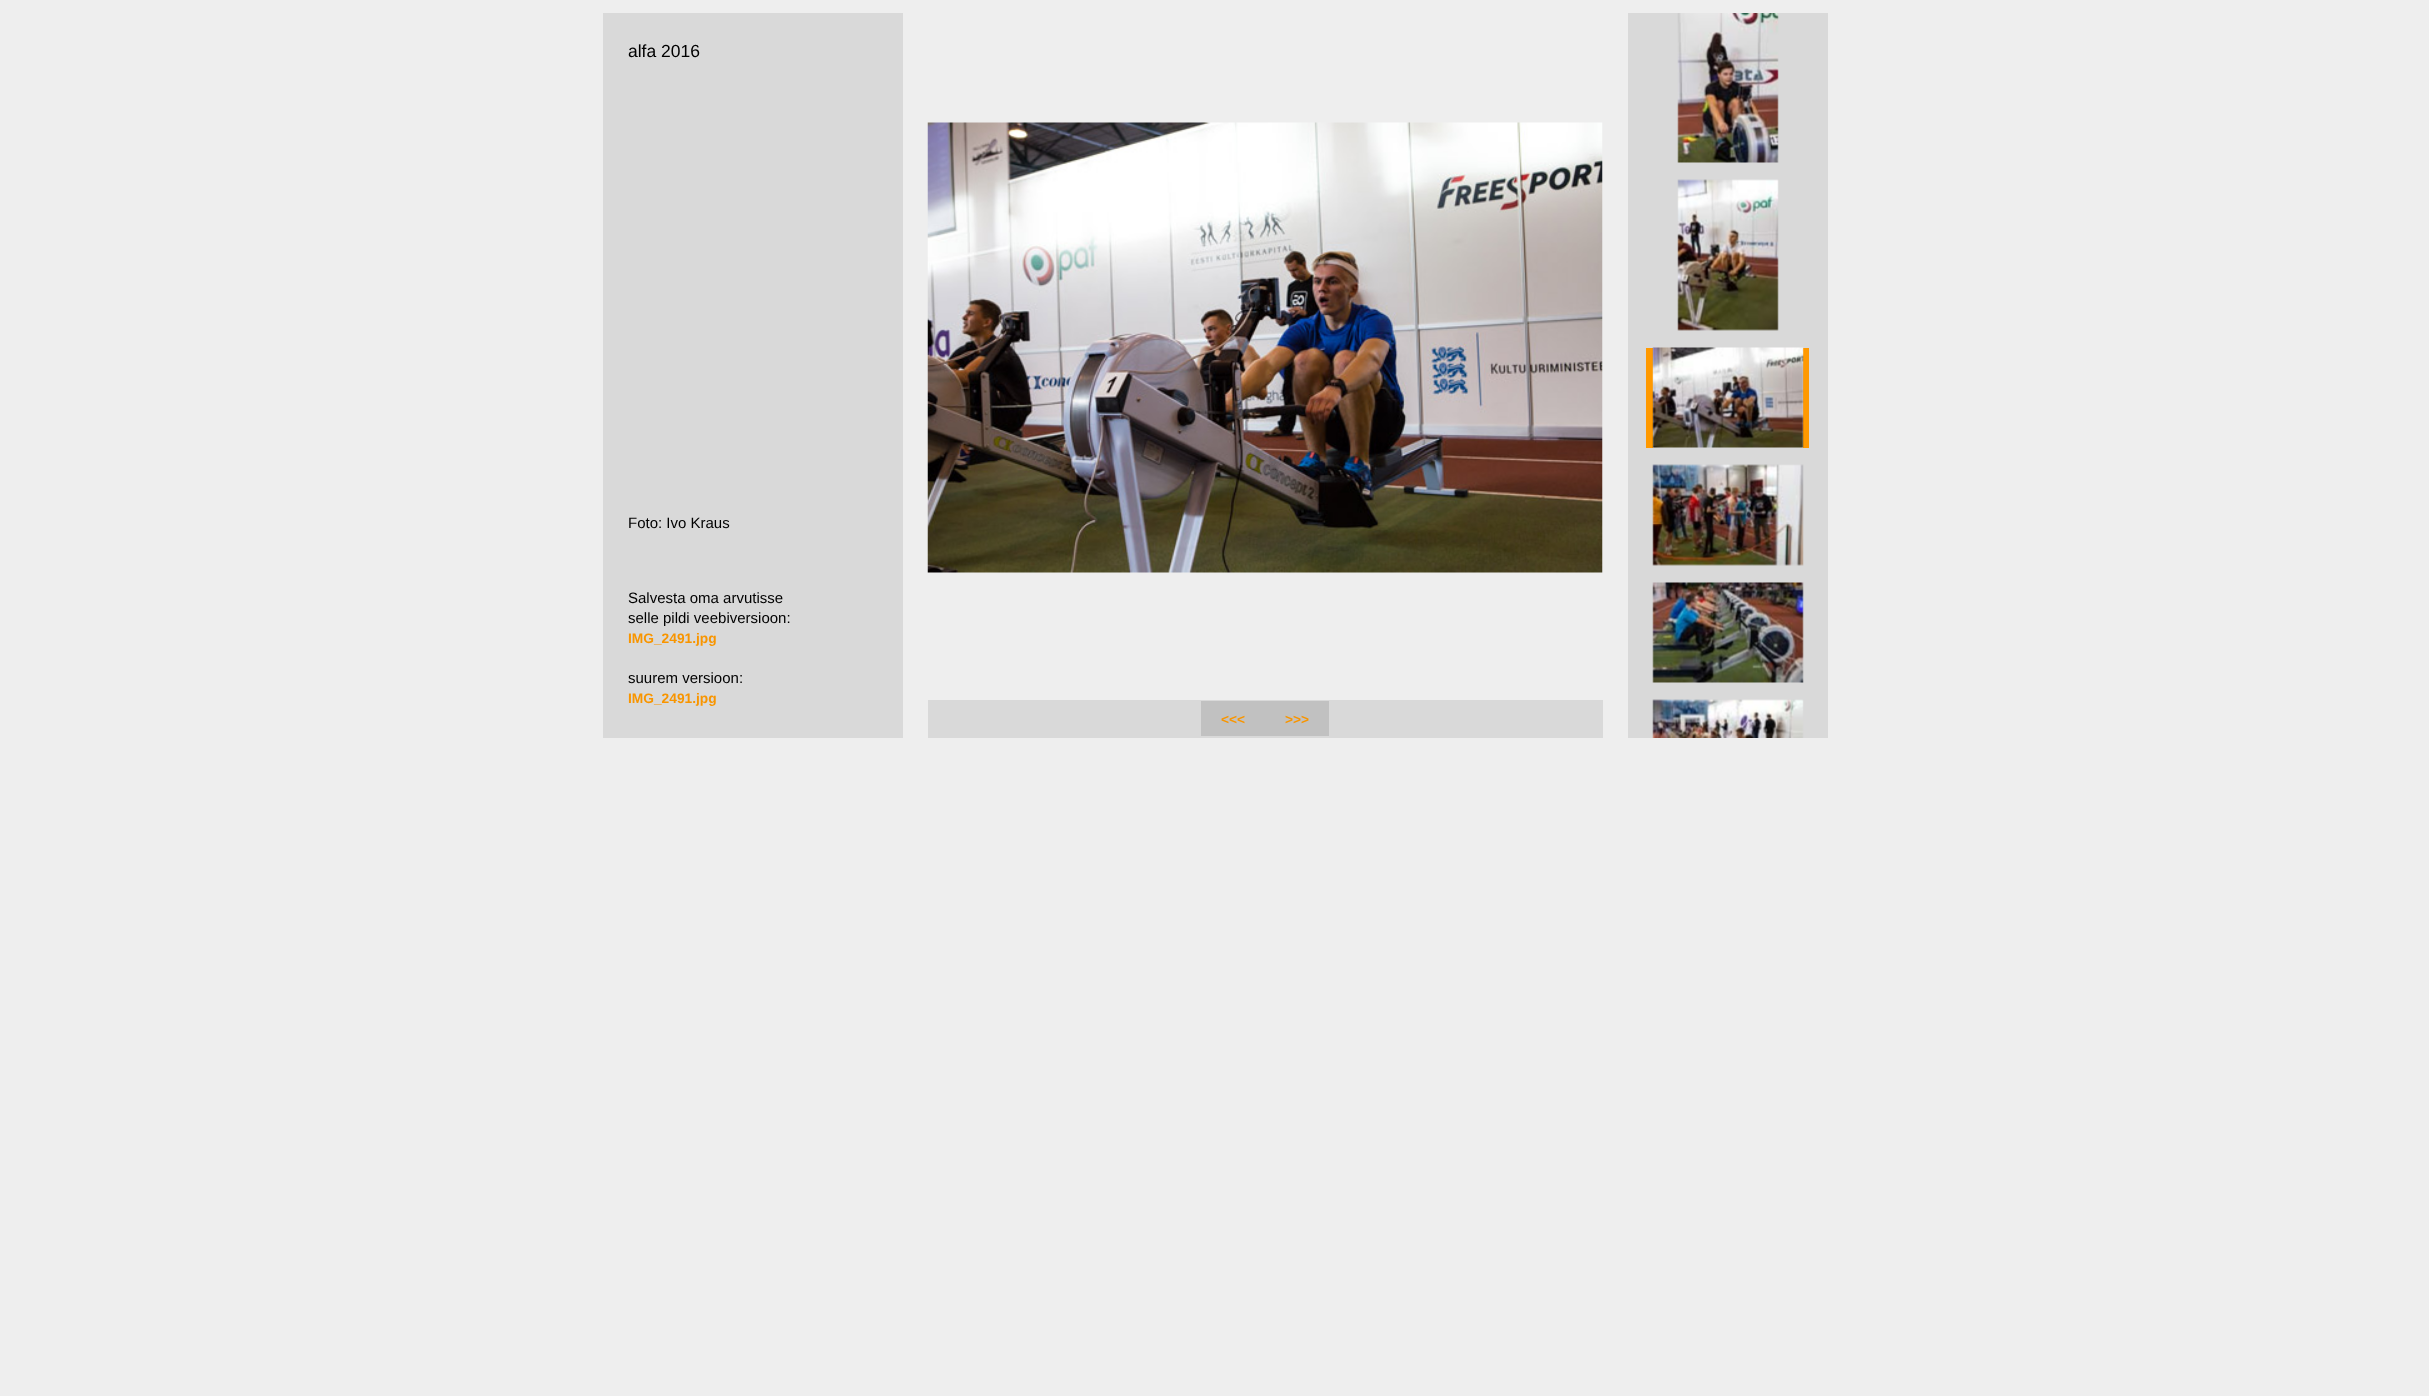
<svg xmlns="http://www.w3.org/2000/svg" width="2429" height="1396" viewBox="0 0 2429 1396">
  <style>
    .t1 { font: 17.5px Liberation Sans; fill: #000; }
    .t2 { font: 15px Liberation Sans; fill: #000; }
    .t3 { font: bold 13.75px Liberation Sans; fill: #f89500; }
  </style>
  <rect width="100%" height="100%" fill="#eee"/>
  <rect x="603" y="13" width="300" height="725" fill="#d9d9d9"/>
  <text x="628" y="57" class="t1">alfa 2016</text>
  <text x="628" y="528" class="t2">Foto: Ivo Kraus</text>
  <text x="628" y="603" class="t2">Salvesta oma arvutisse</text>
  <text x="628" y="623" class="t2">selle pildi veebiversioon:</text>
  <text x="628" y="643" class="t3">IMG_2491.jpg</text>
  <text x="628" y="683" class="t2">suurem versioon:</text>
  <text x="628" y="703" class="t3">IMG_2491.jpg</text>
  <rect x="1628" y="13" width="200" height="725" fill="#d9d9d9"/>
  <image x="1677" y="13" width="102" height="150" href="images/1.png"/>
  <image x="1677" y="179" width="102" height="152" href="images/2.png"/>
  <rect x="1646" y="348" width="7" height="100" fill="#f90"/>
  <rect x="1803" y="348" width="6" height="100" fill="#f90"/>
  <image x="1652" y="347" width="152" height="101" href="images/3.png"/>
  <image x="1652" y="464" width="152" height="102" href="images/4.png"/>
  <image x="1652" y="582" width="152" height="101" href="images/5.png"/>
  <image x="1652" y="699" width="152" height="39" href="images/6.png"/>
  <image x="927" y="122" width="676" height="451" href="images/7.png"/>
  <rect x="928" y="700" width="675" height="38" fill="#d9d9d9"/>
  <rect x="1201" y="701" width="128" height="35" fill="#c1c1c1"/>
  <text x="1221" y="724" class="t3">&lt;&lt;&lt;</text>
  <text x="1285" y="724" class="t3">&gt;&gt;&gt;</text>
</svg>
